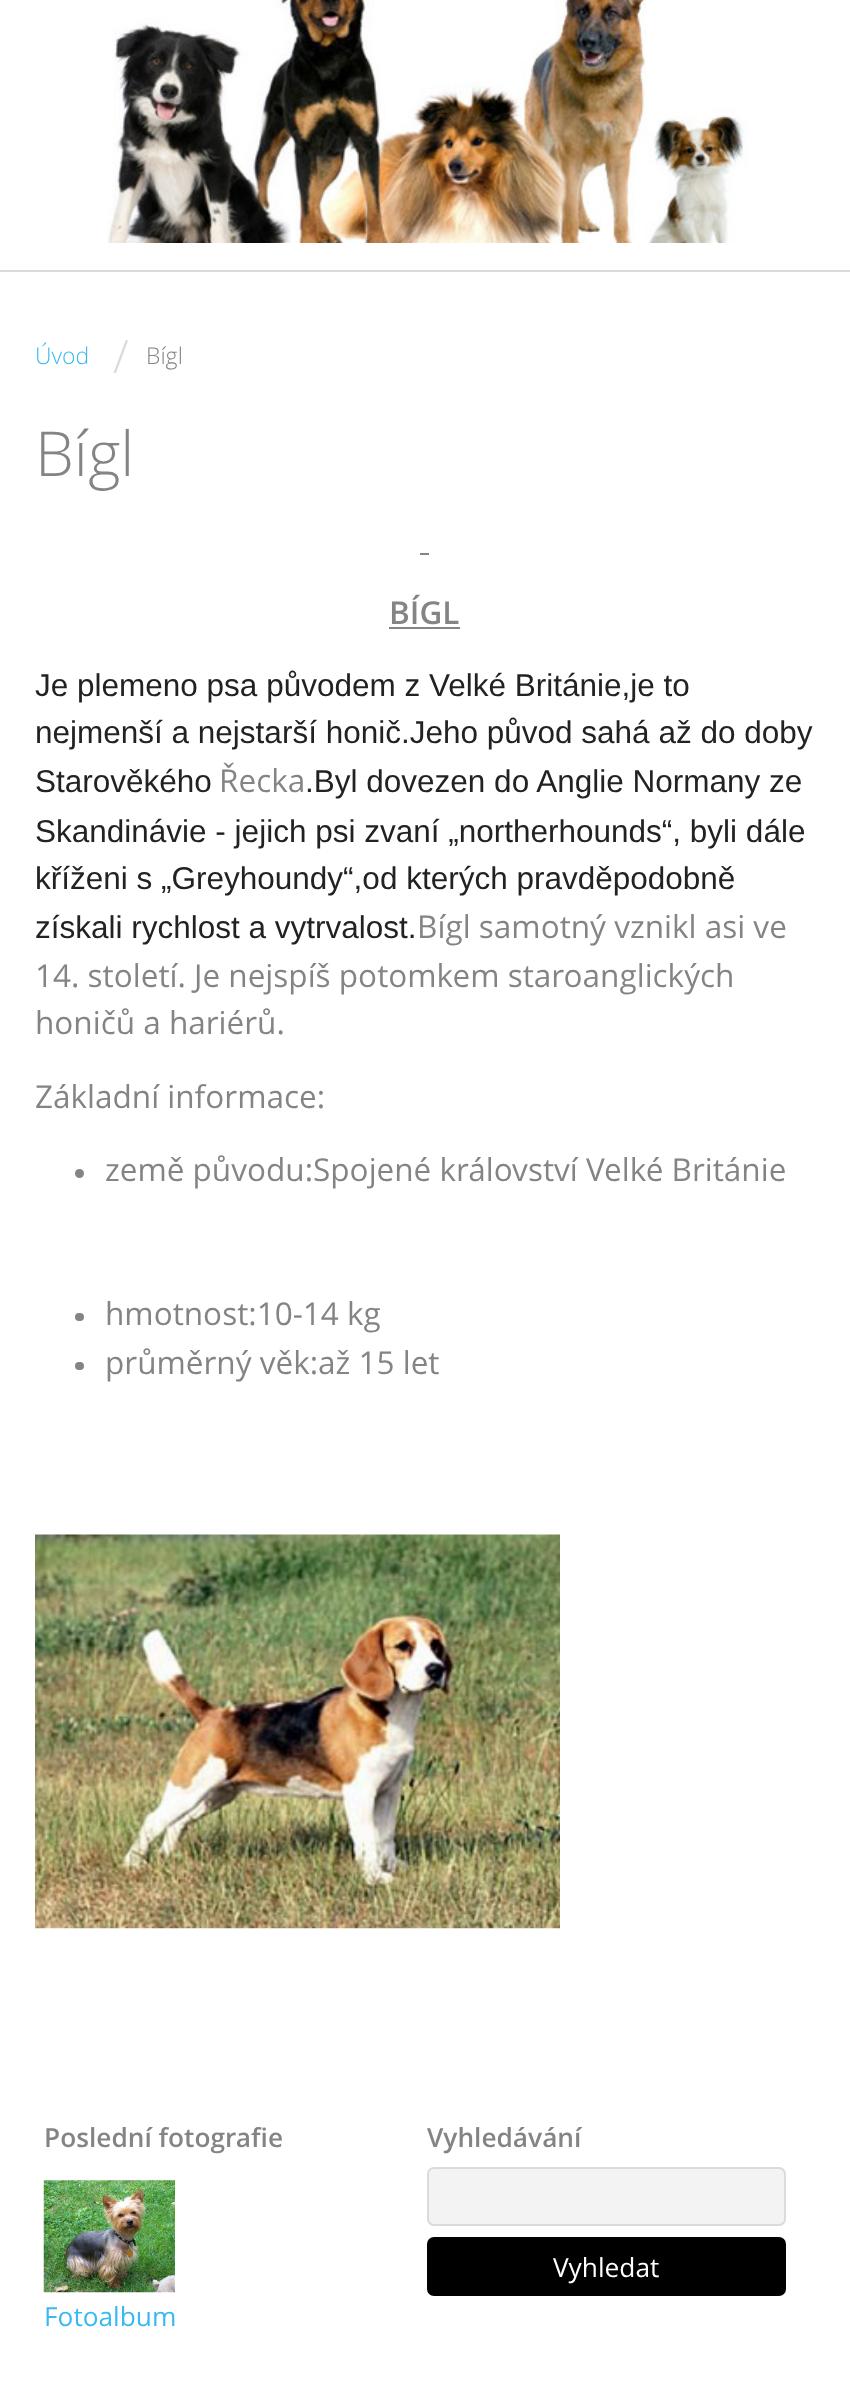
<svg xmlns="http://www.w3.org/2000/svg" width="850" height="2396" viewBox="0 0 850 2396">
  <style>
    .t1 { font: 300 23px Open Sans; fill: #3ab9f0; }
    .t2 { font: 300 46px Open Sans; fill: #dadada; }
    .t3 { font: 300 23px Open Sans; fill: #848484; }
    .t4 { font: 300 62px Open Sans; fill: #848484; }
    .t5 { font: 600 31.5px Open Sans; fill: #848484; }
    .t6 { font: 31.5px Liberation Sans; fill: #222; }
    .t7 { font: 31.5px Open Sans; fill: #848484; }
    .t8 { font: 600 26.25px Open Sans; fill: #848484; }
    .t9 { font: 26.25px Open Sans; fill: #3ab9f0; }
    .t10 { font: 26.25px Open Sans; fill: #fff; }
  </style>
  <rect width="100%" height="100%" fill="#fff"/>
  <image x="107" y="0" width="641" height="243" href="images/1.png"/>
  <rect x="0" y="270" width="850" height="2" fill="#dbdbdb"/>
  <text x="35" y="364" class="t1">Úvod</text>
  <text x="113" y="373" class="t2">/</text>
  <text x="146" y="364" class="t3">Bígl</text>
  <text x="35" y="476" class="t4">Bígl</text>
  <rect x="420" y="553" width="9" height="2" fill="#848484"/>
  <text x="389" y="624" class="t5">BÍGL</text>
  <rect x="389" y="627" width="71" height="2" fill="#848484"/>
  <text x="35" y="696" class="t6">Je plemeno psa původem z Velké Británie,je to</text>
  <text x="35" y="743" class="t6">nejmenší a nejstarší honič.Jeho původ sahá až do doby</text>
  <text x="35" y="792" class="t6">Starověkého</text>
  <text x="219" y="792" class="t7">Řecka</text>
  <text x="305" y="792" class="t6">.Byl dovezen do Anglie Normany ze</text>
  <text x="35" y="842" class="t6">Skandinávie - jejich psi zvaní „northerhounds“, byli dále</text>
  <text x="35" y="889" class="t6">kříženi s „Greyhoundy“,od kterých pravděpodobně</text>
  <text x="35" y="938" class="t6">získali rychlost a vytrvalost.</text>
  <text x="417" y="938" class="t7">Bígl samotný vznikl asi ve</text>
  <text x="35" y="987" class="t7">14. století. Je nejspíš potomkem staroanglických</text>
  <text x="35" y="1034" class="t7">honičů a hariérů.</text>
  <text x="35" y="1108" class="t7">Základní informace:</text>
  <circle cx="79.5" cy="1173.5" r="4.5" fill="#848484"/>
  <text x="105" y="1181" class="t7">země původu:Spojené království Velké Británie</text>
  <rect x="75" y="1313" width="9" height="8" rx="4" fill="#848484"/>
  <text x="105" y="1325" class="t7">hmotnost:10-14 kg</text>
  <rect x="75" y="1362" width="9" height="8" rx="4" fill="#848484"/>
  <text x="105" y="1374" class="t7">průměrný věk:až 15 let</text>
  <image x="35" y="1534" width="525" height="395" href="images/2.png"/>
  <text x="44" y="2147" class="t8">Poslední fotografie</text>
  <image x="43" y="2180" width="132" height="113" href="images/3.png"/>
  <text x="44" y="2326" class="t9">Fotoalbum</text>
  <text x="427" y="2147" class="t8">Vyhledávání</text>
  <rect x="428" y="2168" width="357" height="57" rx="6" fill="#f3f3f3" stroke="#dbdbdb" stroke-width="2"/>
  <rect x="428" y="2238" width="357" height="57" rx="6" fill="#000" stroke="#000" stroke-width="2"/>
  <text x="553" y="2277" class="t10">Vyhledat</text>
</svg>
